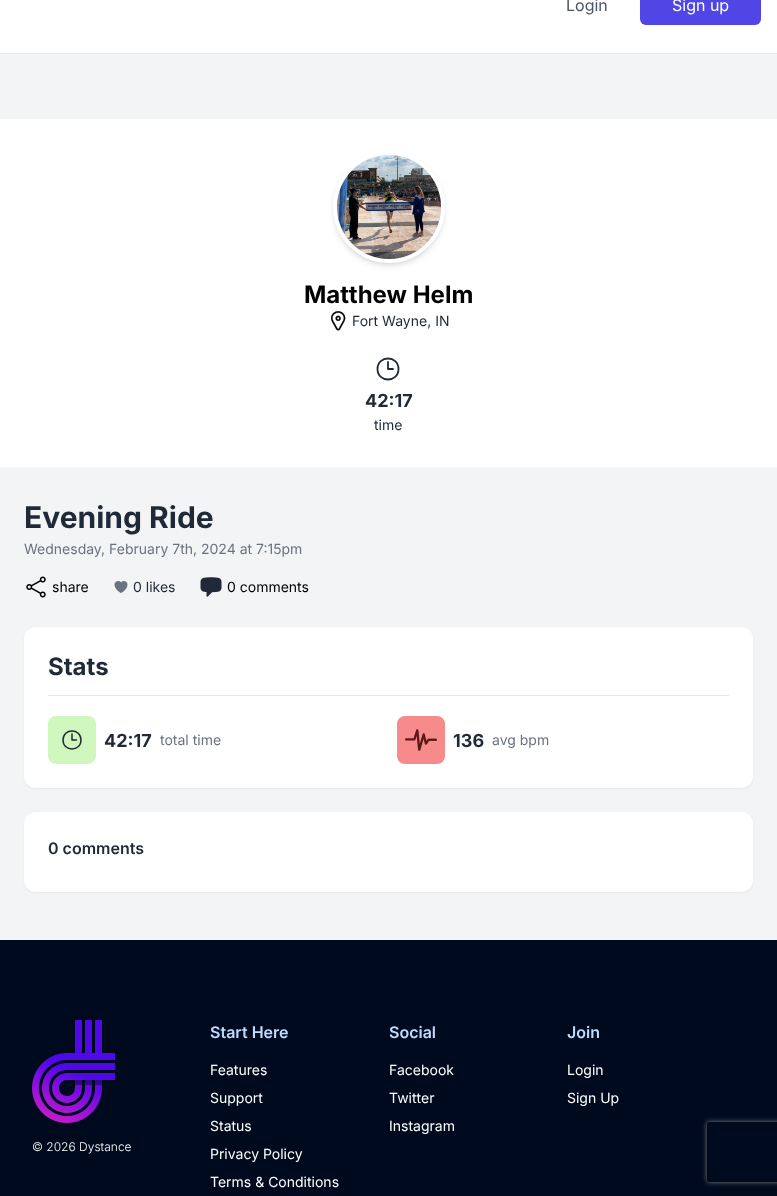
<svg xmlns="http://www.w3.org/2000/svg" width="777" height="1196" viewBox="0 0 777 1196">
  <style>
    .t1 { font: 16px Inter; fill: #4b5563; }
    .t2 { font: 16px Inter; fill: #fff; }
    .t3 { font: bold 24px Inter; fill: #000; }
    .t4 { font: 14px Inter; fill: #1f2937; }
    .t5 { font: bold 18px Inter; fill: #1f2937; }
    .t6 { font: bold 30px Inter; fill: #1f2937; }
    .t7 { font: 14px Inter; fill: #6b7280; }
    .t8 { font: 14px Inter; fill: #000; }
    .t9 { font: bold 24px Inter; fill: #1f2937; }
    .t10 { font: 600 16px Inter; fill: #1f2937; }
    .t11 { font: 300 12px Inter; fill: #fff; }
    .t12 { font: 600 16px Inter; fill: #bfdbfe; }
    .t13 { font: 14px Inter; fill: #fff; }
  </style>
  <defs>
    <clipPath id="clip1"><path d="M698 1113H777V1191H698ZM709 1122H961C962 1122 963 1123 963 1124V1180C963 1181 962 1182 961 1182H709C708 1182 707 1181 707 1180V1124C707 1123 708 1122 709 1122Z" clip-rule="evenodd"/></clipPath>
  </defs>
  <rect width="100%" height="100%" fill="#f3f4f6"/>
  <rect x="0" y="0" width="777" height="53" fill="#fff"/>
  <rect x="0" y="53" width="777" height="1" fill="#e5e7eb"/>
  <text x="566" y="11" class="t1">Login</text>
  <rect x="640" y="-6" width="121" height="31" rx="6" fill="#4f46e5"/>
  <text x="672" y="11" class="t2">Sign up</text>
  <rect x="0" y="119" width="777" height="348" fill="#fff"/>
  <rect x="335" y="155" width="108" height="108" rx="54" fill="#0000001a" filter="blur(2px)"/>
  <rect x="334" y="156" width="110" height="110" rx="55" fill="#0000001a" filter="blur(3px)"/>
  <circle cx="389" cy="207" r="54" fill="none" stroke="#fff" stroke-width="4"/>
  <image x="337" y="155" width="104" height="104" href="images/1.png"/>
  <text x="304" y="303" class="t3">Matthew Helm</text>
  <image x="331" y="311" width="15" height="20" href="images/2.png"/>
  <text x="352" y="326" class="t4">Fort Wayne, IN</text>
  <path d="M388 362V369H393M398.5 369C398.5 383 377.5 383 377.5 369C377.5 355 398.5 355 398.5 369Z" fill="none" stroke="#1f2937" stroke-width="1.8" stroke-linecap="round" stroke-linejoin="round"/>
  <text x="365" y="407" class="t5">42:17</text>
  <text x="374" y="430" class="t4">time</text>
  <text x="24" y="528" class="t6">Evening Ride</text>
  <text x="24" y="554" class="t7">Wednesday, February 7th, 2024 at 7:15pm</text>
  <image x="26" y="576" width="20" height="22" href="images/3.png"/>
  <text x="52" y="592" class="t8">share</text>
  <image x="114" y="581" width="14" height="12" href="images/4.png"/>
  <text x="133" y="592" class="t4">0 likes</text>
  <image x="200" y="577" width="22" height="20" href="images/5.png"/>
  <text x="227" y="592" class="t8">0 comments</text>
  <rect x="24" y="628" width="729" height="161" rx="12" fill="#0000000d" filter="blur(1px)"/>
  <rect x="24" y="627" width="729" height="161" rx="12" fill="#fff"/>
  <text x="48" y="675" class="t9">Stats</text>
  <rect x="48" y="695" width="681" height="1" fill="#e5e7eb"/>
  <rect x="48" y="716" width="48" height="48" rx="8" fill="#cff7be"/>
  <path d="M72 734V740H76.5M81 740C81 752 63 752 63 740C63 728 81 728 81 740Z" fill="none" stroke="#1f2937" stroke-width="1.5" stroke-linecap="round" stroke-linejoin="round"/>
  <text x="104" y="747" class="t5">42:17</text>
  <text x="160" y="745" class="t7">total time</text>
  <rect x="397" y="716" width="48" height="48" rx="8" fill="#f78b8b"/>
  <image x="405" y="729" width="32" height="22" href="images/6.png"/>
  <text x="453" y="747" class="t5">136</text>
  <text x="492" y="745" class="t7">avg bpm</text>
  <rect x="24" y="813" width="729" height="80" rx="12" fill="#0000000d" filter="blur(1px)"/>
  <rect x="24" y="812" width="729" height="80" rx="12" fill="#fff"/>
  <text x="48" y="854" class="t10">0 comments</text>
  <rect x="0" y="940" width="777" height="256" fill="#000a1f"/>
  <image x="32" y="1020" width="83" height="103" href="images/7.png"/>
  <text x="32" y="1151" class="t11">© 2026 Dystance</text>
  <text x="210" y="1038" class="t12">Start Here</text>
  <text x="210" y="1075" class="t13">Features</text>
  <text x="210" y="1103" class="t13">Support</text>
  <text x="210" y="1131" class="t13">Status</text>
  <text x="210" y="1159" class="t13">Privacy Policy</text>
  <text x="210" y="1187" class="t13">Terms &amp; Conditions</text>
  <text x="389" y="1038" class="t12">Social</text>
  <text x="389" y="1075" class="t13">Facebook</text>
  <text x="389" y="1103" class="t13">Twitter</text>
  <text x="389" y="1131" class="t13">Instagram</text>
  <text x="567" y="1038" class="t12">Join</text>
  <text x="567" y="1075" class="t13">Login</text>
  <text x="567" y="1103" class="t13">Sign Up</text>
  <g clip-path="url(#clip1)">
    <rect x="707" y="1122" width="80" height="60" rx="2" fill="#808080" filter="blur(2.5px)"/>
  </g>
</svg>
